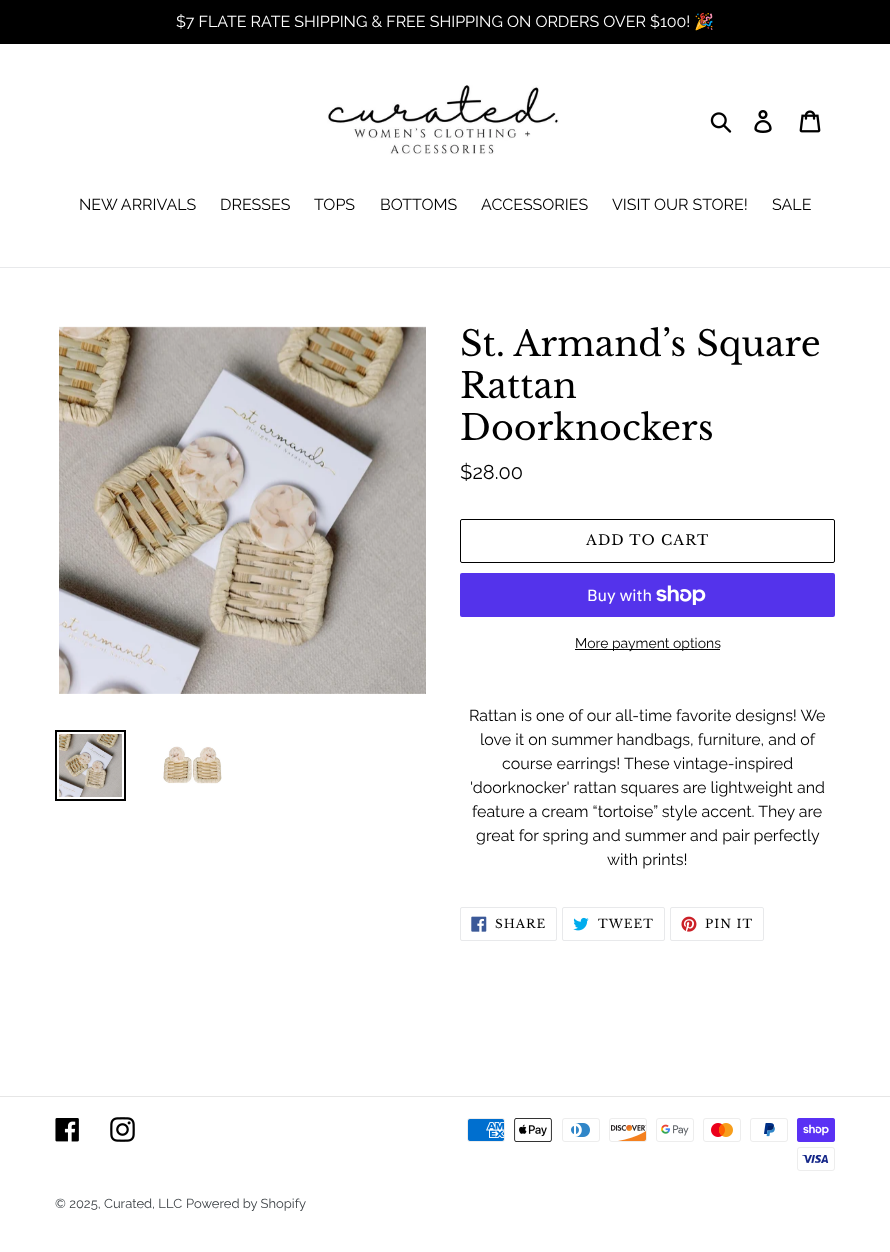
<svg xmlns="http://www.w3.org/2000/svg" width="890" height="1252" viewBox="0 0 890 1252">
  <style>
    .t1 { font: 16px Raleway; fill: #fff; }
    .t2 { font: 16px Noto Color Emoji; fill: #fff; }
    .t3 { font: 16px Raleway; fill: #000; }
    .t4 { font: 35px Libre Baskerville; fill: #000; }
    .t5 { font: 20px Raleway; fill: #000; }
    .t6 { font: 14px Libre Baskerville; letter-spacing: 1.1px; fill: #000; }
    .t7 { font: 16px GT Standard; fill: #fff; }
    .t8 { font: 14px Raleway; fill: #000; }
    .t9 { font: 12px Libre Baskerville; letter-spacing: 1px; fill: #000; }
    .t10 { font: 13px Raleway; fill: #3d4246; }
  </style>
  <rect width="100%" height="100%" fill="#fff"/>
  <rect x="0" y="0" width="890" height="44" fill="#000"/>
  <text x="176" y="27" class="t1">$7 FLATE RATE SHIPPING &amp; FREE SHIPPING ON ORDERS OVER $100!</text>
  <text x="694" y="27" class="t2">🎉</text>
  <image x="327" y="85" width="232" height="70" href="images/1.png"/>
  <image x="710" y="112" width="22" height="21" href="images/2.png"/>
  <image x="754" y="110" width="18" height="23" href="images/3.png"/>
  <image x="799" y="110" width="22" height="23" href="images/4.png"/>
  <rect x="0" y="267" width="890" height="1" fill="#e8e9eb"/>
  <text x="79" y="210" class="t3">NEW ARRIVALS</text>
  <text x="220" y="210" class="t3">DRESSES</text>
  <text x="314" y="210" class="t3">TOPS</text>
  <text x="380" y="210" class="t3">BOTTOMS</text>
  <text x="481" y="210" class="t3">ACCESSORIES</text>
  <text x="612" y="210" class="t3">VISIT OUR STORE!</text>
  <text x="772" y="210" class="t3">SALE</text>
  <image x="59" y="326" width="367" height="368" href="images/5.png"/>
  <rect x="56" y="731" width="69" height="69" fill="none" stroke="#000" stroke-width="2"/>
  <image x="59" y="734" width="63" height="63" href="images/6.png"/>
  <image x="163" y="746" width="59" height="38" href="images/7.png"/>
  <text x="460" y="356" class="t4">St. Armand’s Square</text>
  <text x="460" y="398" class="t4">Rattan</text>
  <text x="460" y="440" class="t4">Doorknockers</text>
  <text x="460" y="479" class="t5">$28.00</text>
  <rect x="460.5" y="519.5" width="374" height="43" rx="1.5" fill="none" stroke="#000"/>
  <text x="586" y="545" class="t6">ADD TO CART</text>
  <rect x="460" y="573" width="375" height="44" rx="2" fill="#5433eb"/>
  <text x="587" y="601" class="t7">Buy with</text>
  <image x="656" y="585" width="50" height="20" href="images/8.png"/>
  <rect x="575" y="649" width="145" height="1" fill="#000"/>
  <text x="575" y="648" class="t8">More payment options</text>
  <text x="469" y="721" class="t3">Rattan is one of our all-time favorite designs! We</text>
  <text x="480" y="745" class="t3">love it on summer handbags, furniture, and of</text>
  <text x="502" y="769" class="t3">course earrings! These vintage-inspired</text>
  <text x="470" y="793" class="t3">'doorknocker' rattan squares are lightweight and</text>
  <text x="472" y="817" class="t3">feature a cream “tortoise” style accent. They are</text>
  <text x="476" y="841" class="t3">great for spring and summer and pair perfectly</text>
  <text x="607" y="865" class="t3">with prints!</text>
  <rect x="460.5" y="907.5" width="96" height="33" rx="1.5" fill="none" stroke="#e8e9eb"/>
  <image x="471" y="916" width="16" height="16" href="images/9.png"/>
  <text x="495" y="928" class="t9">SHARE</text>
  <rect x="562.5" y="907.5" width="102" height="33" rx="1.5" fill="none" stroke="#e8e9eb"/>
  <image x="573" y="917" width="16" height="14" href="images/10.png"/>
  <text x="598" y="928" class="t9">TWEET</text>
  <rect x="670.5" y="907.5" width="93" height="33" rx="1.5" fill="none" stroke="#e8e9eb"/>
  <image x="681" y="916" width="16" height="16" href="images/11.png"/>
  <text x="705" y="928" class="t9">PIN IT</text>
  <rect x="0" y="1096" width="890" height="1" fill="#e6e6e6"/>
  <image x="55" y="1118" width="24" height="24" href="images/12.png"/>
  <image x="110" y="1117" width="25" height="25" href="images/13.png"/>
  <image x="467" y="1118" width="38" height="24" href="images/14.png"/>
  <image x="514" y="1118" width="38" height="24" href="images/15.png"/>
  <image x="562" y="1118" width="38" height="24" href="images/16.png"/>
  <image x="609" y="1118" width="38" height="24" href="images/17.png"/>
  <image x="656" y="1118" width="38" height="24" href="images/18.png"/>
  <image x="703" y="1118" width="38" height="24" href="images/19.png"/>
  <image x="750" y="1118" width="38" height="24" href="images/20.png"/>
  <image x="797" y="1118" width="38" height="24" href="images/21.png"/>
  <image x="797" y="1147" width="38" height="24" href="images/22.png"/>
  <text x="55" y="1208" class="t10">© 2025, Curated, LLC</text>
  <text x="186" y="1208" class="t10">Powered by Shopify</text>
</svg>
